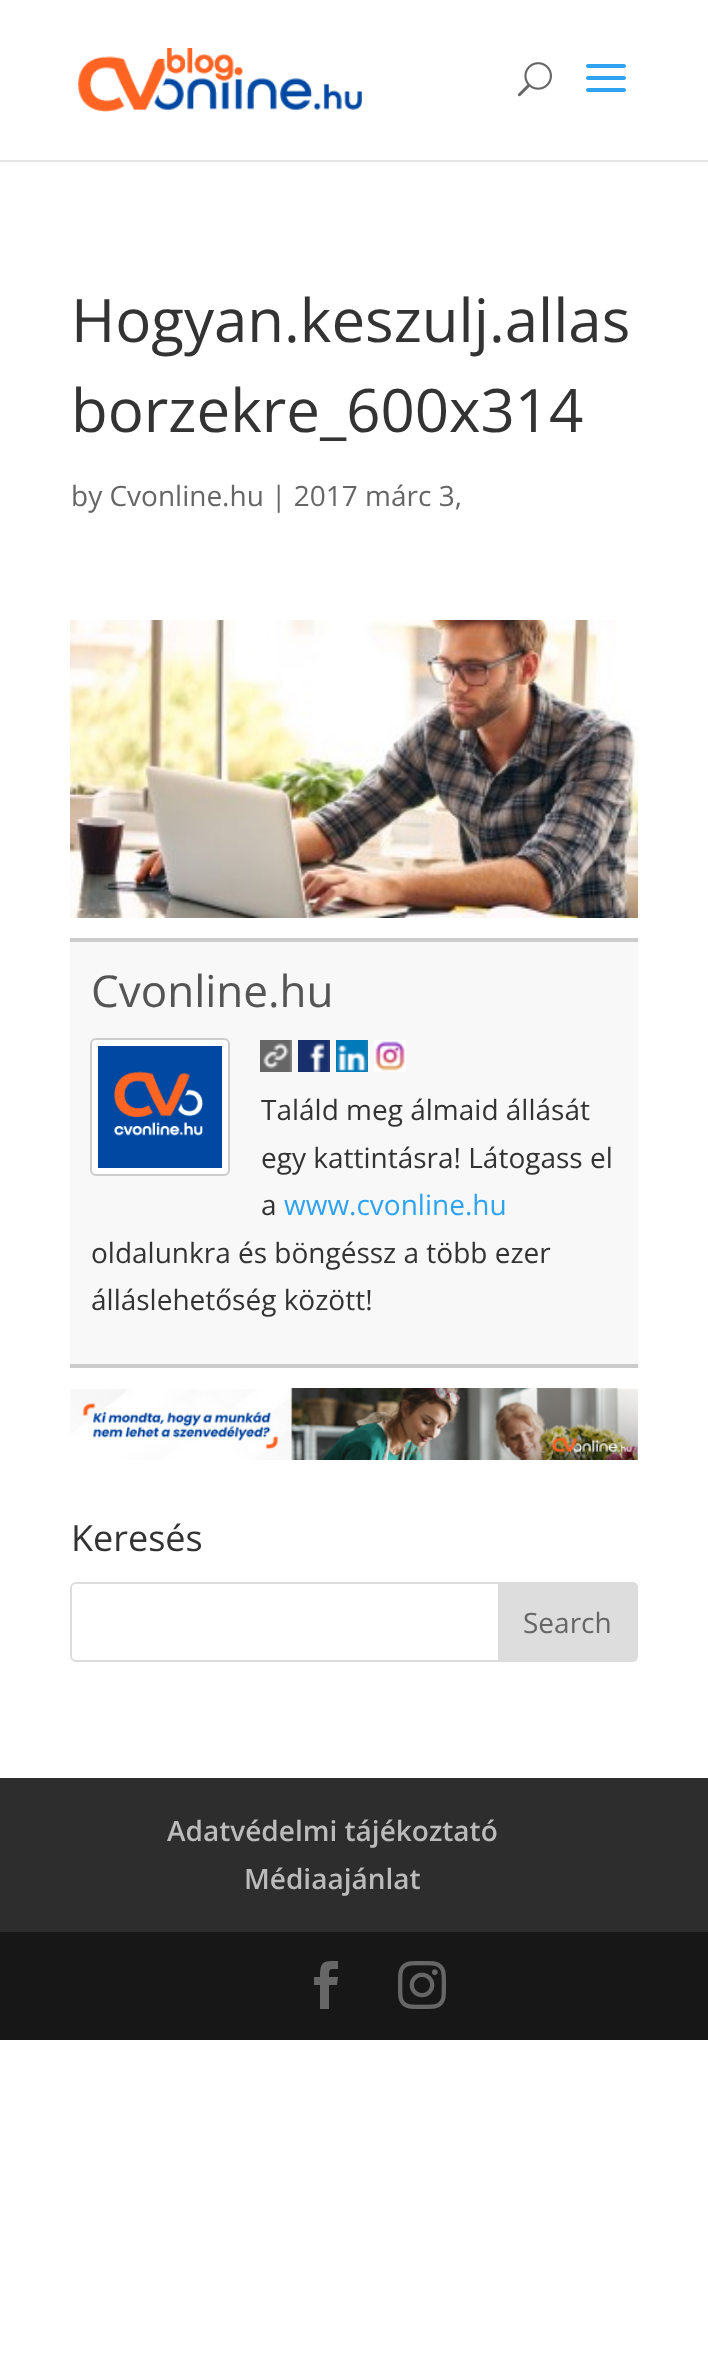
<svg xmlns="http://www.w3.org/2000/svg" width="708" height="2353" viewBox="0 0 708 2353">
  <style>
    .t1 { font: 60px Open Sans; fill: #333; }
    .t2 { font: 28px Open Sans; fill: #666; }
    .t3 { font: 44px Open Sans; fill: #555; }
    .t4 { font: 28px Open Sans; fill: #333; }
    .t5 { font: 28px Open Sans; fill: #2ea3f2; }
    .t6 { font: 36px Open Sans; fill: #333; }
    .t7 { font: 600 28px Open Sans; fill: #bbb; }
  </style>
  <rect width="100%" height="100%" fill="#fff"/>
  <rect x="0" y="160" width="708" height="2" fill="#e6e6e6"/>
  <image x="78" y="48" width="284" height="64" href="images/1.png"/>
  <image x="517" y="62" width="35" height="35" href="images/2.png"/>
  <image x="586" y="64" width="40" height="28" href="images/3.png"/>
  <text x="71" y="342" class="t1">Hogyan.keszulj.allas</text>
  <text x="71" y="432" class="t1">borzekre_600x314</text>
  <text x="71" y="506" class="t2">by Cvonline.hu | 2017 márc 3,</text>
  <image x="70" y="620" width="568" height="298" href="images/4.png"/>
  <rect x="70" y="942" width="568" height="422" fill="#f8f8f8"/>
  <rect x="70" y="938" width="568" height="4" fill="#ccc"/>
  <rect x="70" y="1364" width="568" height="4" fill="#ccc"/>
  <text x="91" y="1007" class="t3">Cvonline.hu</text>
  <rect x="91" y="1039" width="138" height="136" rx="5" fill="#fff" stroke="#ccc" stroke-width="2"/>
  <image x="98" y="1046" width="124" height="122" href="images/5.png"/>
  <image x="260" y="1040" width="32" height="32" href="images/6.png"/>
  <image x="298" y="1040" width="32" height="32" href="images/7.png"/>
  <image x="336" y="1040" width="32" height="32" href="images/8.png"/>
  <image x="374" y="1040" width="32" height="32" href="images/9.png"/>
  <text x="261" y="1120" class="t4">Találd meg álmaid állását</text>
  <text x="261" y="1168" class="t4">egy kattintásra! Látogass el</text>
  <text x="261" y="1215" class="t4">a</text>
  <text x="284" y="1215" class="t5">www.cvonline.hu</text>
  <text x="91" y="1263" class="t4">oldalunkra és böngéssz a több ezer</text>
  <text x="91" y="1310" class="t4">álláslehetőség között!</text>
  <image x="70" y="1388" width="568" height="72" href="images/10.png"/>
  <text x="71" y="1551" class="t6">Keresés</text>
  <rect x="71" y="1583" width="566" height="78" rx="5" fill="none" stroke="#ddd" stroke-width="2"/>
  <path d="M499 1583H632C635 1583 637 1585 637 1588V1656C637 1659 635 1661 632 1661H499Z" fill="#ddd" stroke="#ddd" stroke-width="2"/>
  <text x="523" y="1633" class="t2">Search</text>
  <rect x="0" y="1778" width="708" height="154" fill="#2d2d2d"/>
  <text x="167" y="1841" class="t7">Adatvédelmi tájékoztató</text>
  <text x="244" y="1889" class="t7">Médiaajánlat</text>
  <rect x="0" y="1932" width="708" height="108" fill="#171717"/>
  <path d="M320 2009H329V1985H337L338 1977H329C329 1968 329 1969 338 1969V1961C323 1961 320 1961 320 1977H314V1985H320Z" fill="#666"/>
  <image x="398" y="1961" width="48" height="48" href="images/11.png"/>
</svg>
